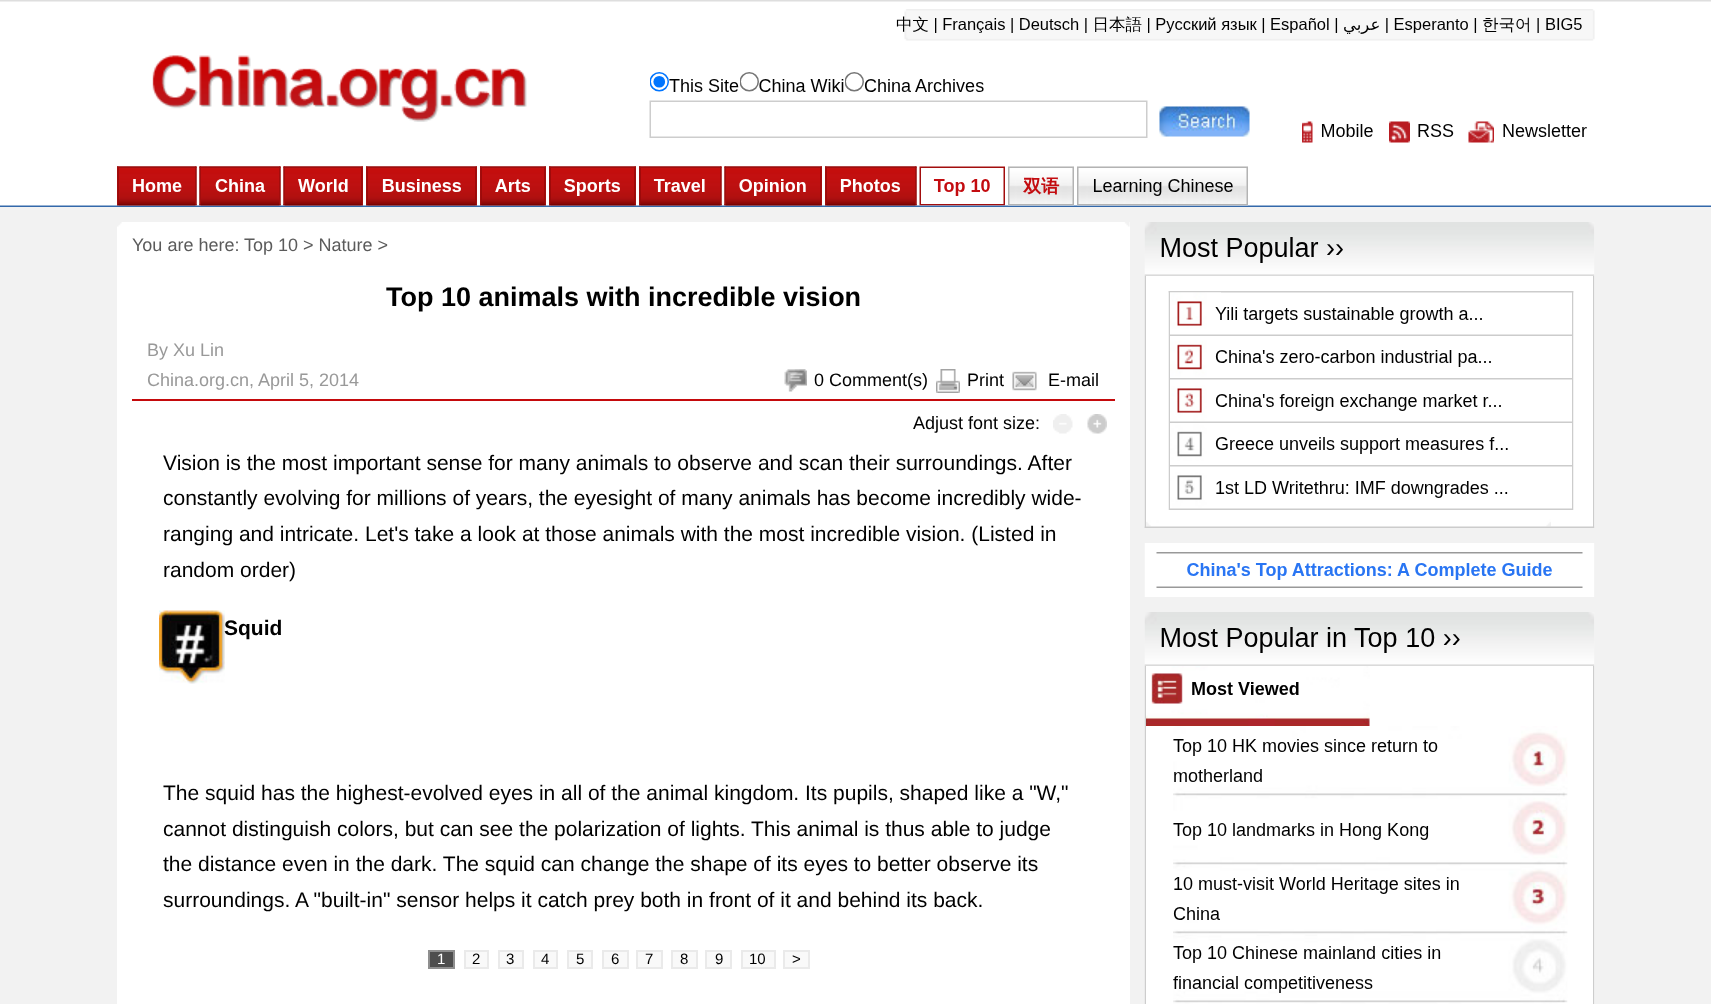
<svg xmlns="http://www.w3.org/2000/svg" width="1711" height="1004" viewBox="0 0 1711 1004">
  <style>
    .t1 { font: 18px Liberation Sans; fill: #5b5b5b; }
    .t2 { font: bold 27px Liberation Sans; fill: #000; }
    .t3 { font: 18px Liberation Sans; fill: #999; }
    .t4 { font: 18px Liberation Sans; fill: #000; }
    .t5 { font: 21px Liberation Sans; fill: #000; }
    .t6 { font: bold 21px Liberation Sans; fill: #000; }
    .t7 { font: 15px Liberation Sans; fill: #fff; }
    .t8 { font: 15px Liberation Sans; fill: #000; }
  </style>
  <rect width="100%" height="100%" fill="#f2f2f2"/>
  <image x="0" y="0" width="1711" height="207" href="images/1.png"/>
  <rect x="117" y="222" width="1013" height="782" fill="#fff"/>
  <image x="117" y="222" width="1013" height="5" href="images/2.png"/>
  <text x="132" y="251" class="t1">You are here:</text>
  <text x="244" y="251" class="t1">Top 10 &gt; Nature &gt;</text>
  <text x="386" y="306" class="t2">Top 10 animals with incredible vision</text>
  <rect x="132" y="399" width="983" height="2" fill="#c50a0c"/>
  <text x="147" y="356" class="t3">By Xu Lin</text>
  <text x="147" y="386" class="t3">China.org.cn, April 5, 2014</text>
  <image x="784" y="369" width="23" height="23" href="images/3.png"/>
  <text x="814" y="386" class="t4">0 Comment(s)</text>
  <image x="936" y="369" width="24" height="24" href="images/4.png"/>
  <text x="967" y="386" class="t4">Print</text>
  <image x="1012" y="371" width="25" height="20" href="images/5.png"/>
  <text x="1048" y="386" class="t4">E-mail</text>
  <text x="913" y="429" class="t4">Adjust font size:</text>
  <image x="1053" y="414" width="20" height="20" href="images/6.png"/>
  <image x="1087" y="414" width="20" height="20" href="images/7.png"/>
  <text x="163" y="470" class="t5">Vision is the most important sense for many animals to observe and scan their surroundings. After</text>
  <text x="163" y="505" class="t5">constantly evolving for millions of years, the eyesight of many animals has become incredibly wide-</text>
  <text x="163" y="541" class="t5">ranging and intricate. Let's take a look at those animals with the most incredible vision. (Listed in</text>
  <text x="163" y="577" class="t5">random order)</text>
  <image x="159" y="610" width="66" height="74" href="images/8.png"/>
  <text x="224" y="635" class="t6">Squid</text>
  <text x="163" y="800" class="t5">The squid has the highest-evolved eyes in all of the animal kingdom. Its pupils, shaped like a "W,"</text>
  <text x="163" y="836" class="t5">cannot distinguish colors, but can see the polarization of lights. This animal is thus able to judge</text>
  <text x="163" y="871" class="t5">the distance even in the dark. The squid can change the shape of its eyes to better observe its</text>
  <text x="163" y="907" class="t5">surroundings. A "built-in" sensor helps it catch prey both in front of it and behind its back.</text>
  <rect x="429" y="951" width="25" height="17" fill="#4e4e4e" stroke="#8f8f8f" stroke-width="2"/>
  <text x="437" y="964" class="t7">1</text>
  <rect x="465" y="951" width="23" height="17" fill="#f9f9f9" stroke="#eaeaea" stroke-width="2"/>
  <text x="472" y="964" class="t8">2</text>
  <rect x="499" y="951" width="24" height="17" fill="#f9f9f9" stroke="#eaeaea" stroke-width="2"/>
  <text x="506" y="964" class="t8">3</text>
  <rect x="534" y="951" width="23" height="17" fill="#f9f9f9" stroke="#eaeaea" stroke-width="2"/>
  <text x="541" y="964" class="t8">4</text>
  <rect x="568" y="951" width="24" height="17" fill="#f9f9f9" stroke="#eaeaea" stroke-width="2"/>
  <text x="576" y="964" class="t8">5</text>
  <rect x="603" y="951" width="25" height="17" fill="#f9f9f9" stroke="#eaeaea" stroke-width="2"/>
  <text x="611" y="964" class="t8">6</text>
  <rect x="637" y="951" width="25" height="17" fill="#f9f9f9" stroke="#eaeaea" stroke-width="2"/>
  <text x="645" y="964" class="t8">7</text>
  <rect x="672" y="951" width="25" height="17" fill="#f9f9f9" stroke="#eaeaea" stroke-width="2"/>
  <text x="680" y="964" class="t8">8</text>
  <rect x="706" y="951" width="25" height="17" fill="#f9f9f9" stroke="#eaeaea" stroke-width="2"/>
  <text x="715" y="964" class="t8">9</text>
  <rect x="742" y="951" width="33" height="17" fill="#f9f9f9" stroke="#eaeaea" stroke-width="2"/>
  <text x="749" y="964" class="t8">10</text>
  <rect x="784" y="951" width="25" height="17" fill="#f9f9f9" stroke="#eaeaea" stroke-width="2"/>
  <text x="792" y="964" class="t8">&gt;</text>
  <image x="1144" y="222" width="451" height="782" href="images/9.png"/>
</svg>
